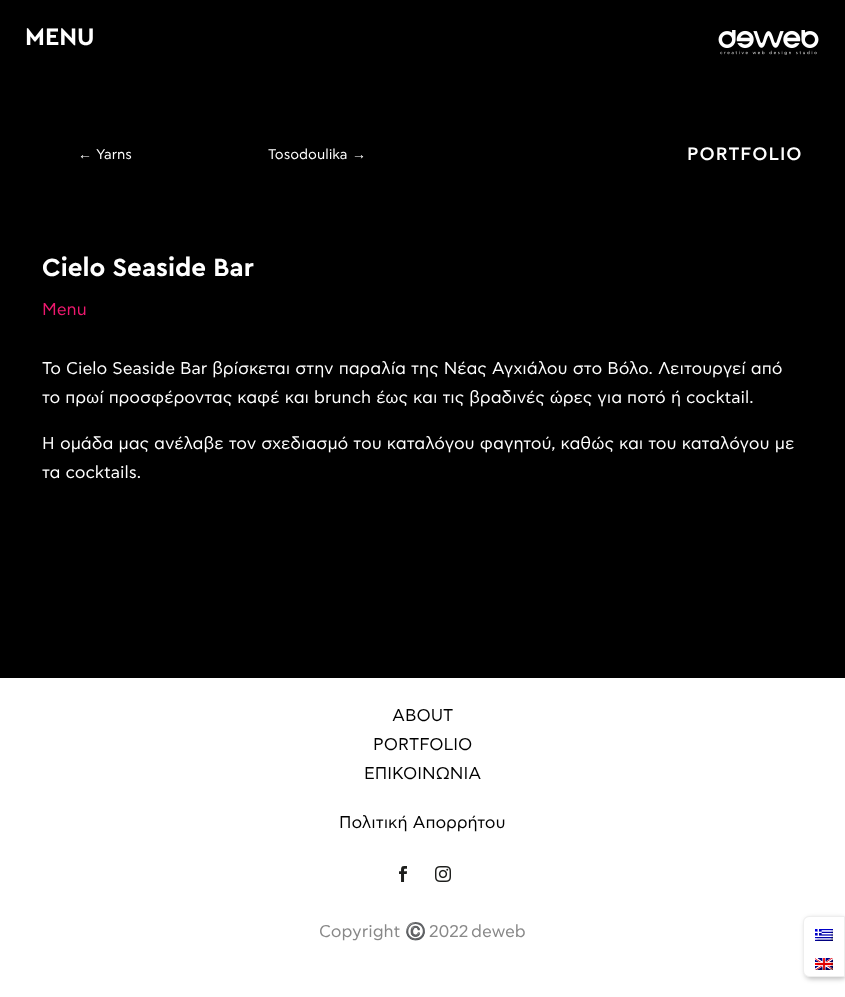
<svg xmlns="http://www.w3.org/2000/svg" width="845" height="997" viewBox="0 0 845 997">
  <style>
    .t1 { font: bold 25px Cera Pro; fill: #fff; }
    .t2 { font: 14px Liberation Sans; fill: #fff; }
    .t3 { font: 14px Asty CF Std; fill: #fff; }
    .t4 { font: 500 18px Asty CF Std; letter-spacing: 1px; fill: #fff; }
    .t5 { font: bold 26px Cera Pro; fill: #fff; }
    .t6 { font: 17px Asty CF Std; fill: #ed196e; }
    .t7 { font: 17px Asty CF Std; fill: #fff; }
    .t8 { font: 17px Asty CF Std; fill: #000; }
    .t9 { font: 17px Asty CF Std; fill: #888; }
    .t10 { font: 17px Noto Color Emoji; fill: #888; }
  </style>
  <rect width="100%" height="100%" fill="#fff"/>
  <rect x="0" y="0" width="845" height="678" fill="#000"/>
  <text x="25" y="45" class="t1">MENU</text>
  <image x="718" y="30" width="101" height="25" href="images/1.png"/>
  <text x="78" y="159" class="t2">←</text>
  <text x="96" y="159" class="t3">Yarns</text>
  <text x="268" y="159" class="t3">Tosodoulika</text>
  <text x="352" y="159" class="t2">→</text>
  <text x="687" y="160" class="t4">PORTFOLIO</text>
  <text x="42" y="276" class="t5">Cielo Seaside Bar</text>
  <text x="42" y="315" class="t6">Menu</text>
  <text x="42" y="374" class="t7">Το Cielo Seaside Bar βρίσκεται στην παραλία της Νέας Αγχιάλου στο Βόλο. Λειτουργεί από</text>
  <text x="42" y="403" class="t7">το πρωί προσφέροντας καφέ και brunch έως και τις βραδινές ώρες για ποτό ή cocktail.</text>
  <text x="42" y="449" class="t7">Η ομάδα μας ανέλαβε τον σχεδιασμό του καταλόγου φαγητού, καθώς και του καταλόγου με</text>
  <text x="42" y="478" class="t7">τα cocktails.</text>
  <text x="392" y="721" class="t8">ABOUT</text>
  <text x="373" y="750" class="t8">PORTFOLIO</text>
  <text x="364" y="779" class="t8">ΕΠΙΚΟΙΝΩΝΙΑ</text>
  <text x="339" y="828" class="t8">Πολιτική Απορρήτου</text>
  <image x="399" y="866" width="8" height="16" href="images/2.png"/>
  <image x="435" y="866" width="16" height="16" href="images/3.png"/>
  <text x="319" y="937" class="t9">Copyright</text>
  <text x="405" y="937" class="t10">©️</text>
  <text x="429" y="937" class="t9">2022</text>
  <text x="471" y="937" class="t9">deweb</text>
  <rect x="805" y="918" width="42" height="61" rx="6" fill="#00000040" filter="blur(2.5px)"/>
  <path d="M809 916.5H844.5V976.5H809C806 976.5 803.5 974 803.5 971V922C803.5 919 806 916.5 809 916.5Z" fill="#fff" stroke="#eee"/>
  <image x="815" y="929" width="18" height="12" href="images/4.png"/>
  <image x="815" y="958" width="18" height="12" href="images/5.png"/>
</svg>
